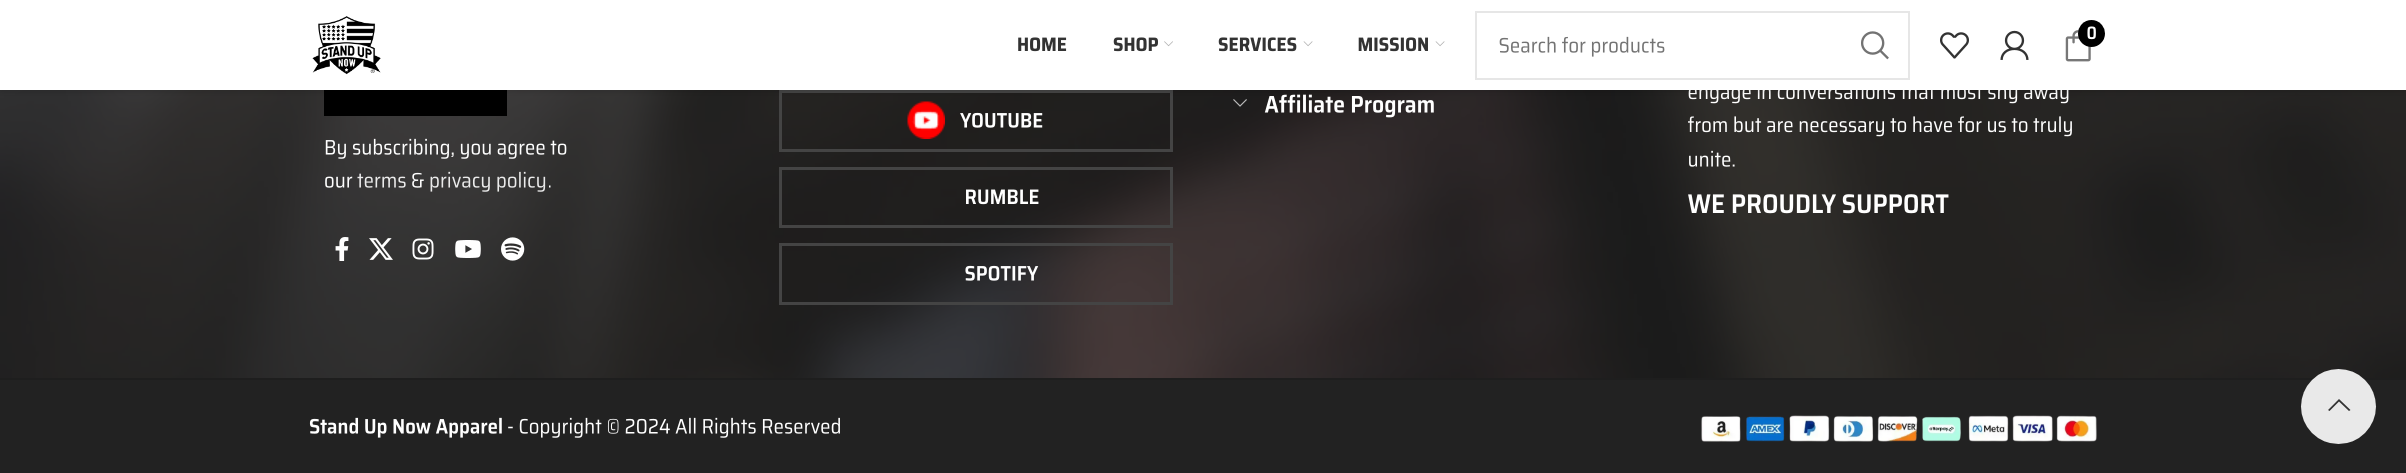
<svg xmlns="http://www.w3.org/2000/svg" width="2406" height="473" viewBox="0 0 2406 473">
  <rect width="100%" height="100%" fill="#222"/>
  <image x="0" y="90" width="2406" height="288" href="images/14.png"/>
  <rect x="324" y="90" width="183" height="26" fill="#000"/>
  <rect x="780.5" y="91.5" width="391" height="59" fill="none" stroke="#444" stroke-width="3"/>
  <image x="1264" y="94" width="170" height="24" href="images/30.png"/>
  <image x="1688" y="90" width="381" height="14" href="images/31.png"/>
  <rect x="0" y="2" width="2406" height="90" fill="#0000001a" filter="blur(2px)"/>
  <rect x="0" y="0" width="2406" height="90" fill="#fff"/>
  <image x="312" y="16" width="69" height="59" href="images/1.png"/>
  <image x="1018" y="37" width="49" height="15" href="images/2.png"/>
  <image x="1113" y="37" width="45" height="15" href="images/3.png"/>
  <image x="1164" y="41" width="9" height="6" href="images/4.png"/>
  <image x="1218" y="37" width="79" height="15" href="images/5.png"/>
  <image x="1303" y="41" width="10" height="6" href="images/6.png"/>
  <image x="1358" y="37" width="70" height="15" href="images/7.png"/>
  <image x="1435" y="41" width="10" height="6" href="images/6.png"/>
  <rect x="1476" y="12" width="433" height="67" fill="none" stroke="#e6e6e6" stroke-width="2"/>
  <image x="1499" y="36" width="166" height="21" href="images/8.png"/>
  <image x="1861" y="31" width="28" height="29" href="images/9.png"/>
  <image x="1940" y="32" width="29" height="27" href="images/10.png"/>
  <image x="2000" y="30" width="29" height="30" href="images/11.png"/>
  <image x="2065" y="30" width="26" height="32" href="images/13.png"/>
  <circle cx="2091.5" cy="33.5" r="13.5" fill="#000"/>
  <image x="2087" y="26" width="9" height="14" href="images/12.png"/>
  <image x="325" y="138" width="242" height="21" href="images/15.png"/>
  <image x="325" y="176" width="28" height="12" href="images/16.png"/>
  <image x="357" y="173" width="49" height="15" href="images/17.png"/>
  <image x="412" y="172" width="12" height="16" href="images/18.png"/>
  <image x="430" y="171" width="116" height="21" href="images/19.png"/>
  <path d="M549 187.5V185.5H550.5V187.5Z" fill="#fff"/>
  <image x="335" y="237" width="14" height="24" href="images/20.png"/>
  <image x="369" y="238" width="24" height="22" href="images/21.png"/>
  <image x="412" y="238" width="22" height="22" href="images/22.png"/>
  <image x="455" y="240" width="26" height="18" href="images/23.png"/>
  <image x="501" y="237" width="24" height="24" href="images/24.png"/>
  <image x="907" y="101" width="38" height="38" href="images/25.png"/>
  <image x="960" y="112" width="83" height="16" href="images/26.png"/>
  <rect x="780.5" y="168.5" width="391" height="58" fill="none" stroke="#444" stroke-width="3"/>
  <image x="966" y="189" width="73" height="16" href="images/27.png"/>
  <rect x="780.5" y="244.5" width="391" height="59" fill="none" stroke="#444" stroke-width="3"/>
  <image x="965" y="265" width="74" height="16" href="images/28.png"/>
  <image x="1233" y="99" width="14" height="8" href="images/29.png"/>
  <image x="1688" y="116" width="384" height="21" href="images/32.png"/>
  <image x="1689" y="150" width="46" height="17" href="images/33.png"/>
  <image x="1688" y="194" width="261" height="20" href="images/34.png"/>
  <rect x="0" y="378" width="2406" height="2" fill="#1e1e1e"/>
  <image x="309" y="417" width="193" height="21" href="images/35.png"/>
  <image x="508" y="417" width="332" height="21" href="images/36.png"/>
  <image x="1701" y="415" width="396" height="27" href="images/37.png"/>
  <circle cx="2338.5" cy="406.5" r="37.5" fill="#ffffffe6"/>
  <path d="M2349 411L2350.5 410L2339 399L2328 410L2329.5 411L2339 401.5Z" fill="#333"/>
</svg>
